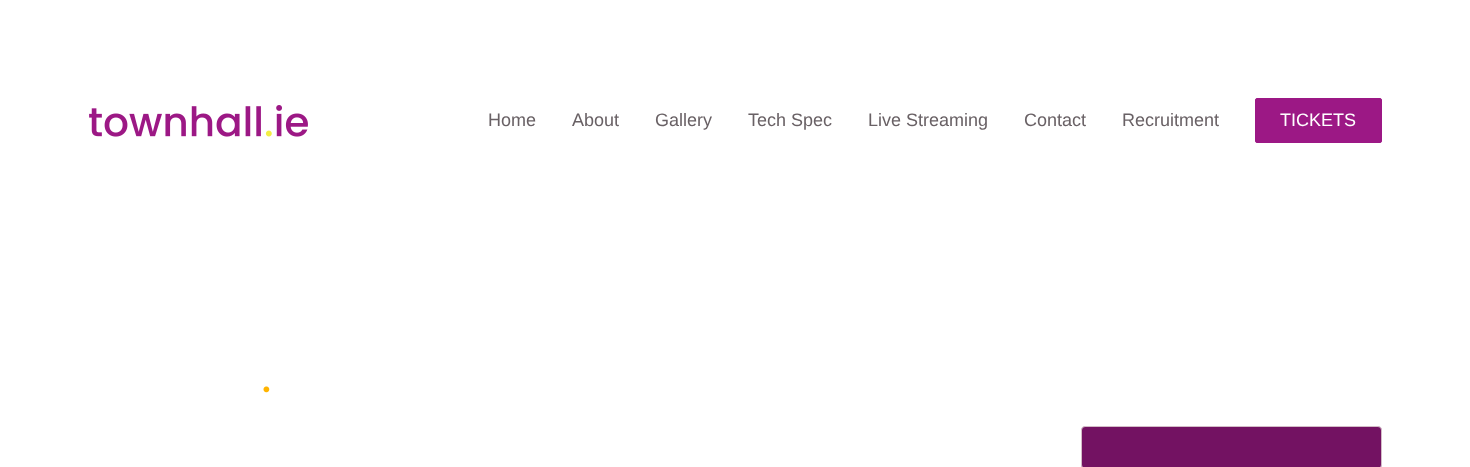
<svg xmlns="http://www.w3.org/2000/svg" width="1470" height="467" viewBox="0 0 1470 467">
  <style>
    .t1 { font: 18px Liberation Sans; fill: #696165; }
    .t2 { font: 18px Liberation Sans; fill: #fff; }
  </style>
  <rect width="100%" height="100%" fill="#fff"/>
  <image x="89" y="105" width="219" height="32" href="images/1.png"/>
  <text x="488" y="126" class="t1">Home</text>
  <text x="572" y="126" class="t1">About</text>
  <text x="655" y="126" class="t1">Gallery</text>
  <text x="748" y="126" class="t1">Tech Spec</text>
  <text x="868" y="126" class="t1">Live Streaming</text>
  <text x="1024" y="126" class="t1">Contact</text>
  <text x="1122" y="126" class="t1">Recruitment</text>
  <rect x="1255.5" y="98.5" width="126" height="44" rx="1.5" fill="#9c1885" stroke="#9c1885"/>
  <text x="1280" y="126" class="t2">TICKETS</text>
  <image x="263" y="386" width="7" height="7" href="images/2.png"/>
  <rect x="1081.5" y="426.5" width="300" height="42" rx="3.5" fill="#731262" stroke="#d3bcc7"/>
</svg>
